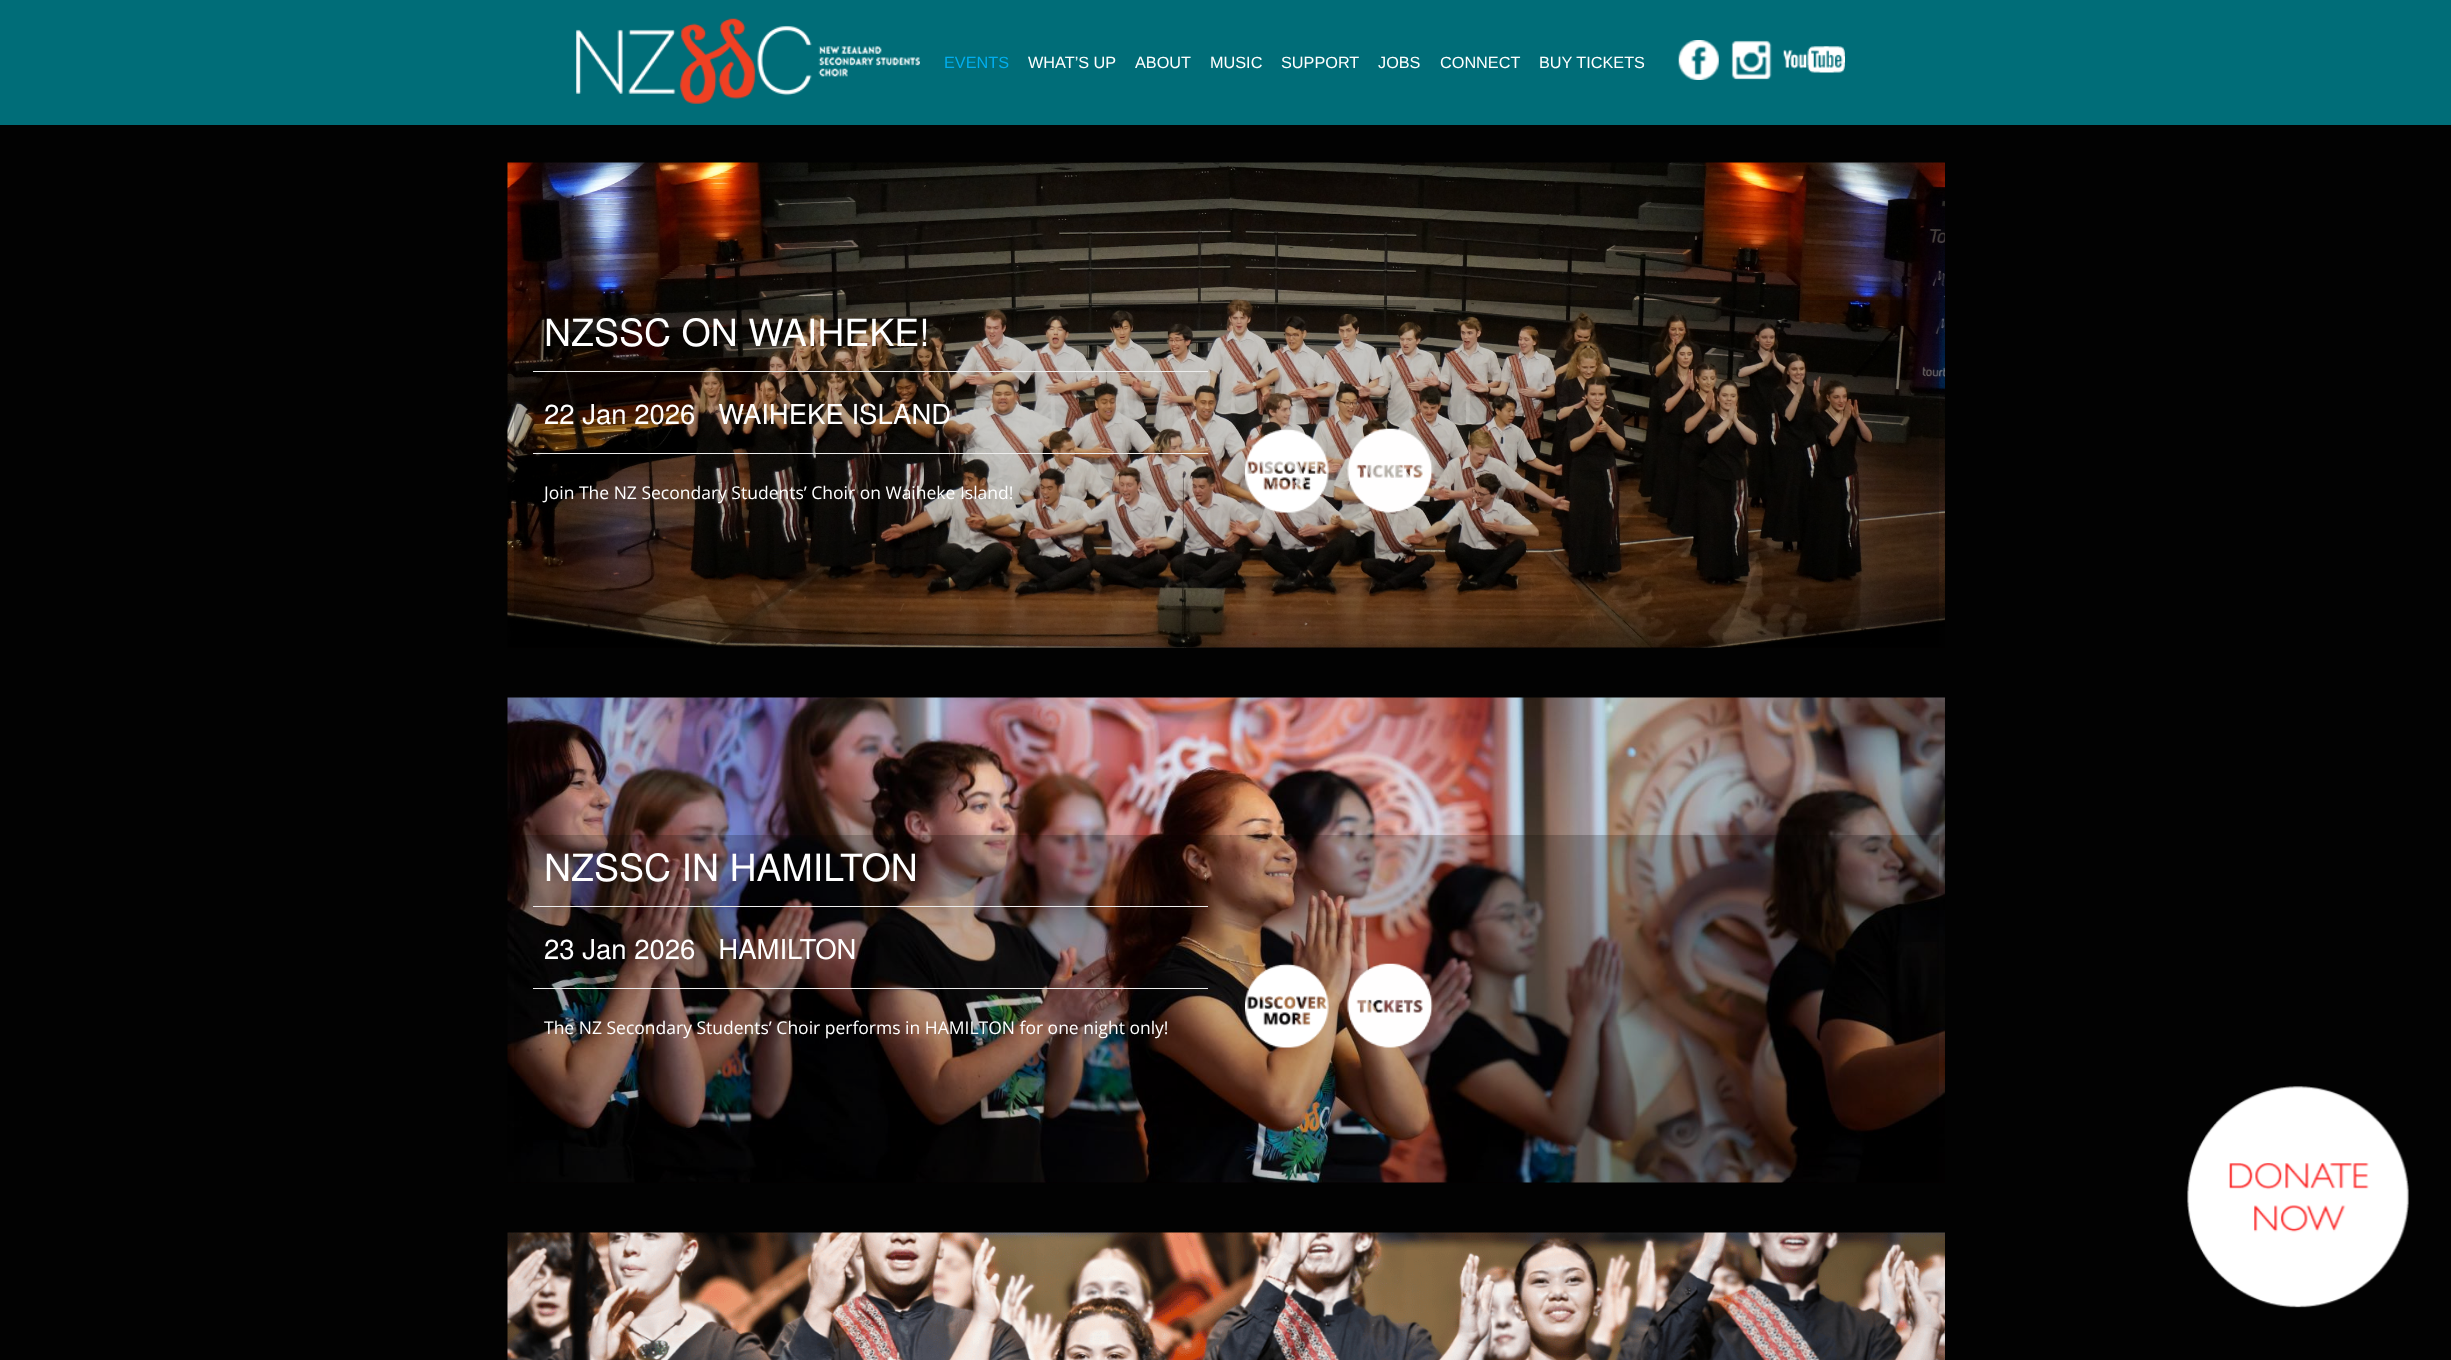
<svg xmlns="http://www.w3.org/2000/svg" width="2451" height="1360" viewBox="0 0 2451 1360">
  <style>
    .t1 { font: 16.25px Liberation Sans; fill: #00aeef; }
    .t2 { font: 16.25px Liberation Sans; fill: #fff; }
    .t3 { font: 37.5px TeX Gyre Heros; fill: #fff; }
    .t4 { font: 27.5px TeX Gyre Heros; fill: #fff; }
    .t5 { font: 17.5px Open Sans; fill: #fff; }
  </style>
  <rect width="100%" height="100%" fill="#020202"/>
  <rect x="0" y="0" width="2451" height="125" fill="#006d78"/>
  <image x="576" y="18" width="344" height="86" href="images/1.png"/>
  <text x="944" y="68" class="t1">EVENTS</text>
  <text x="1028" y="68" class="t2">WHAT’S UP</text>
  <text x="1135" y="68" class="t2">ABOUT</text>
  <text x="1210" y="68" class="t2">MUSIC</text>
  <text x="1281" y="68" class="t2">SUPPORT</text>
  <text x="1378" y="68" class="t2">JOBS</text>
  <text x="1440" y="68" class="t2">CONNECT</text>
  <text x="1539" y="68" class="t2">BUY TICKETS</text>
  <image x="1678" y="40" width="41" height="40" href="images/2.png"/>
  <image x="1731" y="40" width="41" height="40" href="images/3.png"/>
  <image x="1783" y="46" width="62" height="27" href="images/4.png"/>
  <rect x="508" y="647" width="1437" height="1" fill="#070000"/>
  <image x="507" y="162" width="1438" height="486" href="images/5.png"/>
  <rect x="514" y="300" width="1425" height="348" fill="#00000033"/>
  <text x="544" y="346" class="t3">NZSSC ON WAIHEKE!</text>
  <rect x="533" y="371" width="675" height="1" fill="#eee"/>
  <text x="544" y="424" class="t4" xml:space="preserve">22 Jan 2026   WAIHEKE ISLAND</text>
  <rect x="533" y="453" width="675" height="1" fill="#eee"/>
  <text x="544" y="499" class="t5">Join The NZ Secondary Students’ Choir on Waiheke Island!</text>
  <image x="1245" y="428" width="84" height="85" href="images/6.png"/>
  <image x="1347" y="428" width="86" height="85" href="images/7.png"/>
  <rect x="508" y="1182" width="1437" height="1" fill="#070000"/>
  <image x="507" y="697" width="1438" height="486" href="images/8.png"/>
  <rect x="514" y="835" width="1425" height="348" fill="#00000033"/>
  <text x="544" y="881" class="t3">NZSSC IN HAMILTON</text>
  <rect x="533" y="906" width="675" height="1" fill="#eee"/>
  <text x="544" y="959" class="t4" xml:space="preserve">23 Jan 2026   HAMILTON</text>
  <rect x="533" y="988" width="675" height="1" fill="#eee"/>
  <text x="544" y="1034" class="t5">The NZ Secondary Students’ Choir performs in HAMILTON for one night only!</text>
  <image x="1245" y="963" width="84" height="85" href="images/9.png"/>
  <image x="1347" y="963" width="86" height="85" href="images/10.png"/>
  <image x="507" y="1232" width="1438" height="128" href="images/11.png"/>
  <image x="2187" y="1086" width="222" height="222" href="images/12.png"/>
</svg>
